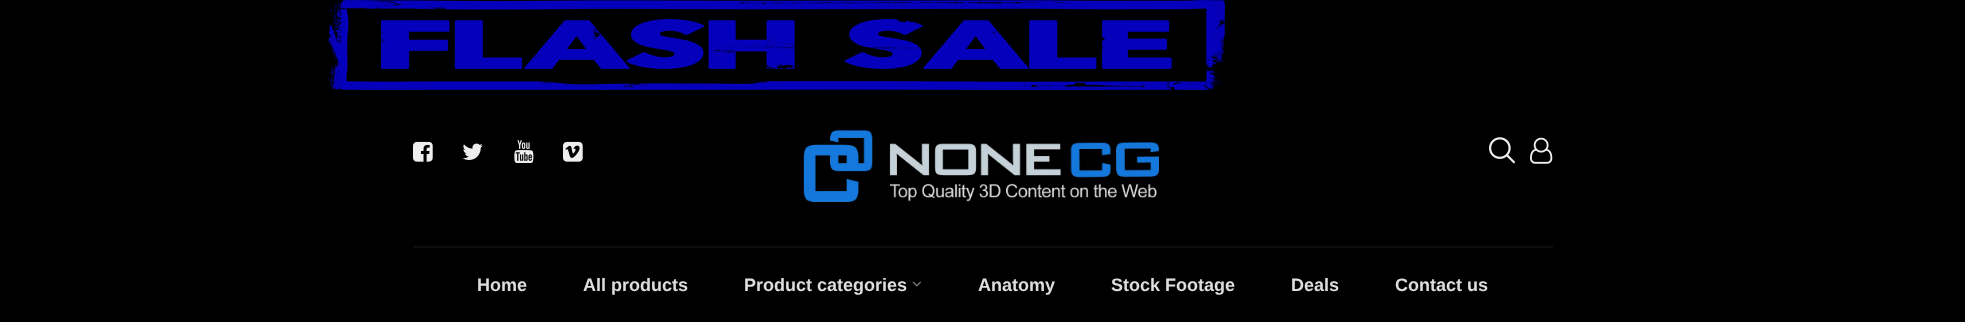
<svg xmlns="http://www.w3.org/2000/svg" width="1965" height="322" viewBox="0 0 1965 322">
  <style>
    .t1 { font: bold 18px Liberation Sans; fill: #ddd; }
  </style>
  <rect width="100%" height="100%" fill="#000"/>
  <image x="328" y="0" width="897" height="90" href="images/1.png"/>
  <image x="413" y="141" width="20" height="21" href="images/2.png"/>
  <image x="462" y="143" width="21" height="17" href="images/3.png"/>
  <image x="514" y="140" width="20" height="23" href="images/4.png"/>
  <image x="563" y="141" width="20" height="21" href="images/5.png"/>
  <image x="803" y="130" width="356" height="72" href="images/6.png"/>
  <image x="1489" y="137" width="26" height="27" href="images/7.png"/>
  <image x="1530" y="137" width="23" height="27" href="images/8.png"/>
  <rect x="413" y="246" width="1140" height="2" fill="#0d0d0d"/>
  <text x="477" y="291" class="t1">Home</text>
  <text x="583" y="291" class="t1">All products</text>
  <text x="744" y="291" class="t1">Product categories</text>
  <image x="912" y="281" width="9" height="6" href="images/9.png"/>
  <text x="978" y="291" class="t1">Anatomy</text>
  <text x="1111" y="291" class="t1">Stock Footage</text>
  <text x="1291" y="291" class="t1">Deals</text>
  <text x="1395" y="291" class="t1">Contact us</text>
</svg>
